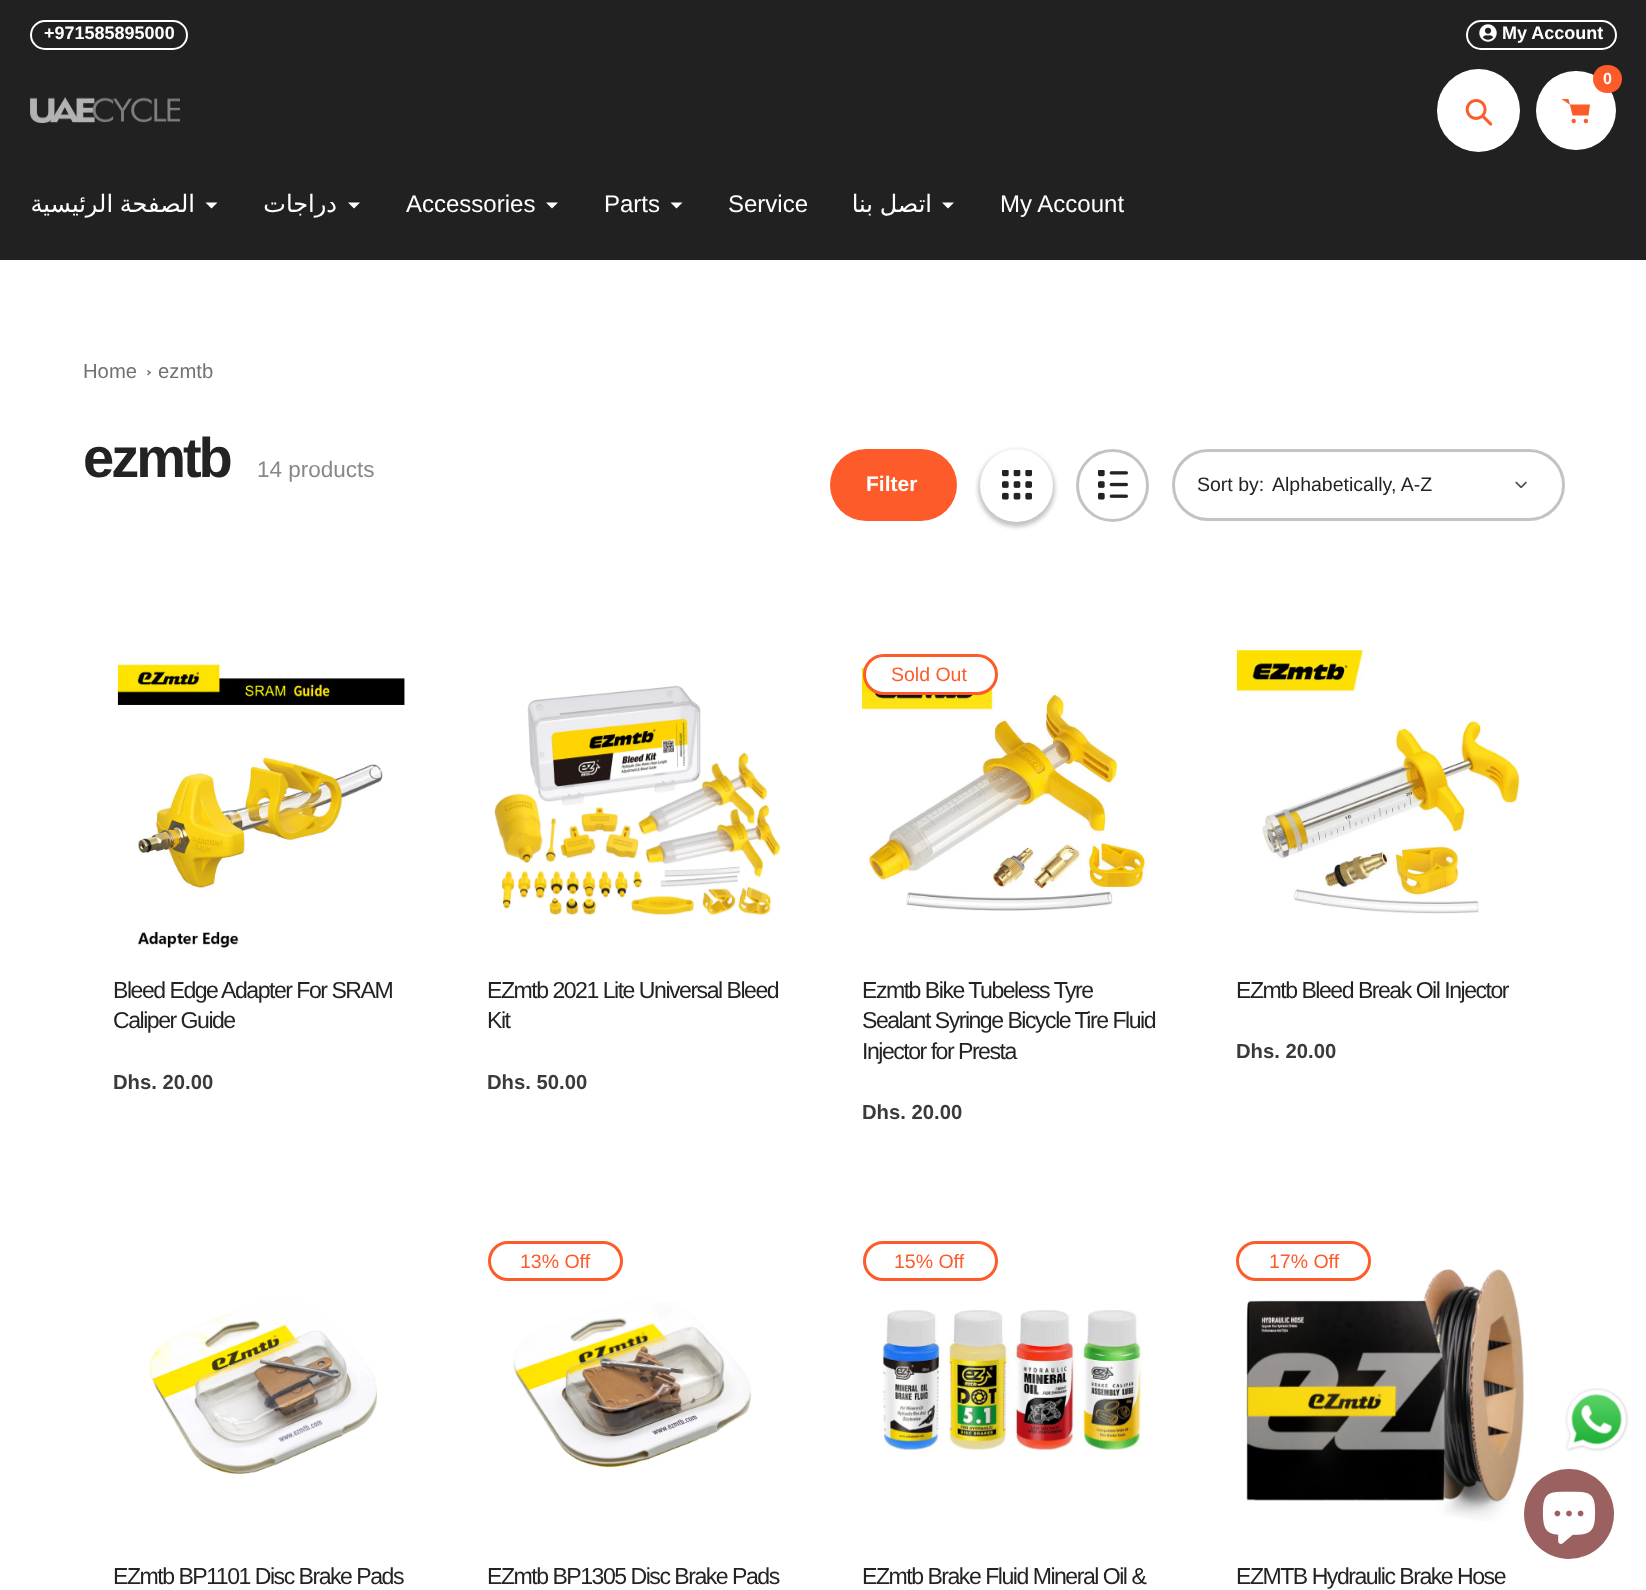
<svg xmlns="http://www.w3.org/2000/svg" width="1646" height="1590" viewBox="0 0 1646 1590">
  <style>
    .t1 { font: bold 18px Liberation Sans; fill: #fff; }
    .t2 { font: bold 16px Liberation Sans; fill: #fff; }
    .t3 { font: 24px DejaVu Sans; direction: rtl; fill: #fff; }
    .t4 { font: 24px Liberation Sans; fill: #fff; }
    .t5 { font: 20.25px Liberation Sans; fill: #727272; }
    .t6 { font: bold 56px Liberation Sans; letter-spacing: -3px; fill: #232323; }
    .t7 { font: 22.5px Liberation Sans; fill: #888; }
    .t8 { font: bold 21px Liberation Sans; fill: #fff; }
    .t9 { font: 19.5px Liberation Sans; fill: #232323; }
    .t10 { font: 23.1px Liberation Sans; letter-spacing: -1.5px; fill: #232323; }
    .t11 { font: bold 20.25px Liberation Sans; fill: #3a3a3a; }
    .t12 { font: 19.5px Liberation Sans; fill: #fd5b2a; }
  </style>
  <rect width="100%" height="100%" fill="#fff"/>
  <rect x="0" y="0" width="1646" height="260" fill="#212121"/>
  <rect x="31" y="21" width="156" height="28" rx="14" fill="none" stroke="#fff" stroke-width="2"/>
  <text x="44" y="39" class="t1">+971585895000</text>
  <rect x="1467" y="21" width="149" height="28" rx="14" fill="none" stroke="#fff" stroke-width="2"/>
  <image x="1479" y="24" width="18" height="18" href="images/1.png"/>
  <text x="1502" y="39" class="t1">My Account</text>
  <circle cx="1478.5" cy="110.5" r="41.5" fill="#fff"/>
  <image x="1465" y="99" width="28" height="27" href="images/2.png"/>
  <rect x="1536" y="71" width="80" height="79" rx="39.5" fill="#fff"/>
  <rect x="1593" y="65" width="29" height="28" rx="14" fill="#fd5b2a"/>
  <text x="1603" y="84" class="t2">0</text>
  <circle cx="1573.7" cy="121" r="2.2" fill="#fd5b2a"/>
  <circle cx="1585.9" cy="121" r="2.2" fill="#fd5b2a"/>
  <path d="M1569.5 104.5H1590L1588.5 115.5H1572.5L1568.5 99H1561.5" fill="#fd5b2a" fill-rule="evenodd"/>
  <image x="30" y="97" width="150" height="26" href="images/3.png"/>
  <text x="195" y="212" word-spacing="-1" class="t3">الصفحة الرئيسية</text>
  <path d="M217.5 202.5L211.5 208.5L205.5 202.5" fill="#fff"/>
  <text x="337" y="212" class="t3">دراجات</text>
  <path d="M360 202.5L354 208.5L348 202.5" fill="#fff"/>
  <text x="406" y="212" class="t4">Accessories</text>
  <path d="M558 202.5L552 208.5L546 202.5" fill="#fff"/>
  <text x="604" y="212" class="t4">Parts</text>
  <path d="M682.5 202.5L676.5 208.5L670.5 202.5" fill="#fff"/>
  <text x="728" y="212" class="t4">Service</text>
  <text x="932" y="212" word-spacing="-1" class="t3">اتصل بنا</text>
  <path d="M954 202.5L948 208.5L942 202.5" fill="#fff"/>
  <text x="1000" y="212" class="t4">My Account</text>
  <text x="83" y="378" class="t5">Home</text>
  <path d="M148 370L151 372.5L150 373.5L147 371Z" fill="#727272"/>
  <path d="M150 371.5L151 372.5L148 375.5L147 374.5Z" fill="#727272"/>
  <text x="158" y="378" class="t5">ezmtb</text>
  <text x="83" y="477" class="t6">ezmtb</text>
  <text x="257" y="477" class="t7">14 products</text>
  <rect x="830" y="449" width="127" height="72" rx="36" fill="#fd5b2a"/>
  <text x="866" y="491" class="t8">Filter</text>
  <rect x="978" y="450" width="77" height="77" rx="38.5" fill="#c3c3c3" filter="blur(2px)"/>
  <circle cx="1016.5" cy="485.5" r="36.5" fill="#fff"/>
  <image x="1002" y="470" width="30" height="30" href="images/4.png"/>
  <circle cx="1112.5" cy="485.5" r="35" fill="none" stroke="#c3c3c3" stroke-width="3"/>
  <image x="1098" y="470" width="30" height="30" href="images/5.png"/>
  <rect x="1173.5" y="450.5" width="390" height="69" rx="34.5" fill="none" stroke="#c3c3c3" stroke-width="3"/>
  <text x="1197" y="491" class="t9">Sort by:</text>
  <text x="1272" y="491" class="t9">Alphabetically, A-Z</text>
  <image x="1515" y="481" width="12" height="8" href="images/6.png"/>
  <image x="117" y="662" width="288" height="286" href="images/7.png"/>
  <text x="113" y="998" class="t10">Bleed Edge Adapter For SRAM</text>
  <text x="113" y="1028" class="t10">Caliper Guide</text>
  <text x="113" y="1089" class="t11">Dhs. 20.00</text>
  <image x="494" y="685" width="287" height="231" href="images/8.png"/>
  <text x="487" y="998" class="t10">EZmtb 2021 Lite Universal Bleed</text>
  <text x="487" y="1028" class="t10">Kit</text>
  <text x="487" y="1089" class="t11">Dhs. 50.00</text>
  <image x="861" y="667" width="286" height="244" href="images/9.png"/>
  <rect x="864.5" y="655.5" width="132" height="38" rx="19" fill="#fff" stroke="#fd5b2a" stroke-width="3"/>
  <text x="891" y="681" class="t12">Sold Out</text>
  <text x="862" y="998" class="t10">Ezmtb Bike Tubeless Tyre</text>
  <text x="862" y="1028" class="t10">Sealant Syringe Bicycle Tire Fluid</text>
  <text x="862" y="1059" class="t10">Injector for Presta</text>
  <text x="862" y="1119" class="t11">Dhs. 20.00</text>
  <image x="1236" y="650" width="284" height="264" href="images/10.png"/>
  <text x="1236" y="998" class="t10">EZmtb Bleed Break Oil Injector</text>
  <text x="1236" y="1058" class="t11">Dhs. 20.00</text>
  <image x="149" y="1302" width="228" height="172" href="images/11.png"/>
  <text x="113" y="1584" class="t10">EZmtb BP1101 Disc Brake Pads</text>
  <rect x="489.5" y="1242.5" width="132" height="37" rx="18.5" fill="none" stroke="#fd5b2a" stroke-width="3"/>
  <text x="520" y="1268" class="t12">13% Off</text>
  <image x="513" y="1302" width="239" height="166" href="images/12.png"/>
  <text x="487" y="1584" class="t10">EZmtb BP1305 Disc Brake Pads</text>
  <rect x="864.5" y="1242.5" width="132" height="37" rx="18.5" fill="none" stroke="#fd5b2a" stroke-width="3"/>
  <text x="894" y="1268" class="t12">15% Off</text>
  <image x="882" y="1310" width="261" height="141" href="images/13.png"/>
  <text x="862" y="1584" class="t10">EZmtb Brake Fluid Mineral Oil &amp;</text>
  <image x="1246" y="1269" width="278" height="252" href="images/14.png"/>
  <rect x="1237.5" y="1242.5" width="132" height="37" rx="18.5" fill="none" stroke="#fd5b2a" stroke-width="3"/>
  <text x="1269" y="1268" class="t12">17% Off</text>
  <text x="1236" y="1584" class="t10">EZMTB Hydraulic Brake Hose</text>
  <image x="1565" y="1388" width="64" height="64" href="images/15.png"/>
  <circle cx="1569" cy="1514" r="45" fill="#9b6161"/>
  <image x="1542" y="1491" width="54" height="53" href="images/16.png"/>
</svg>
